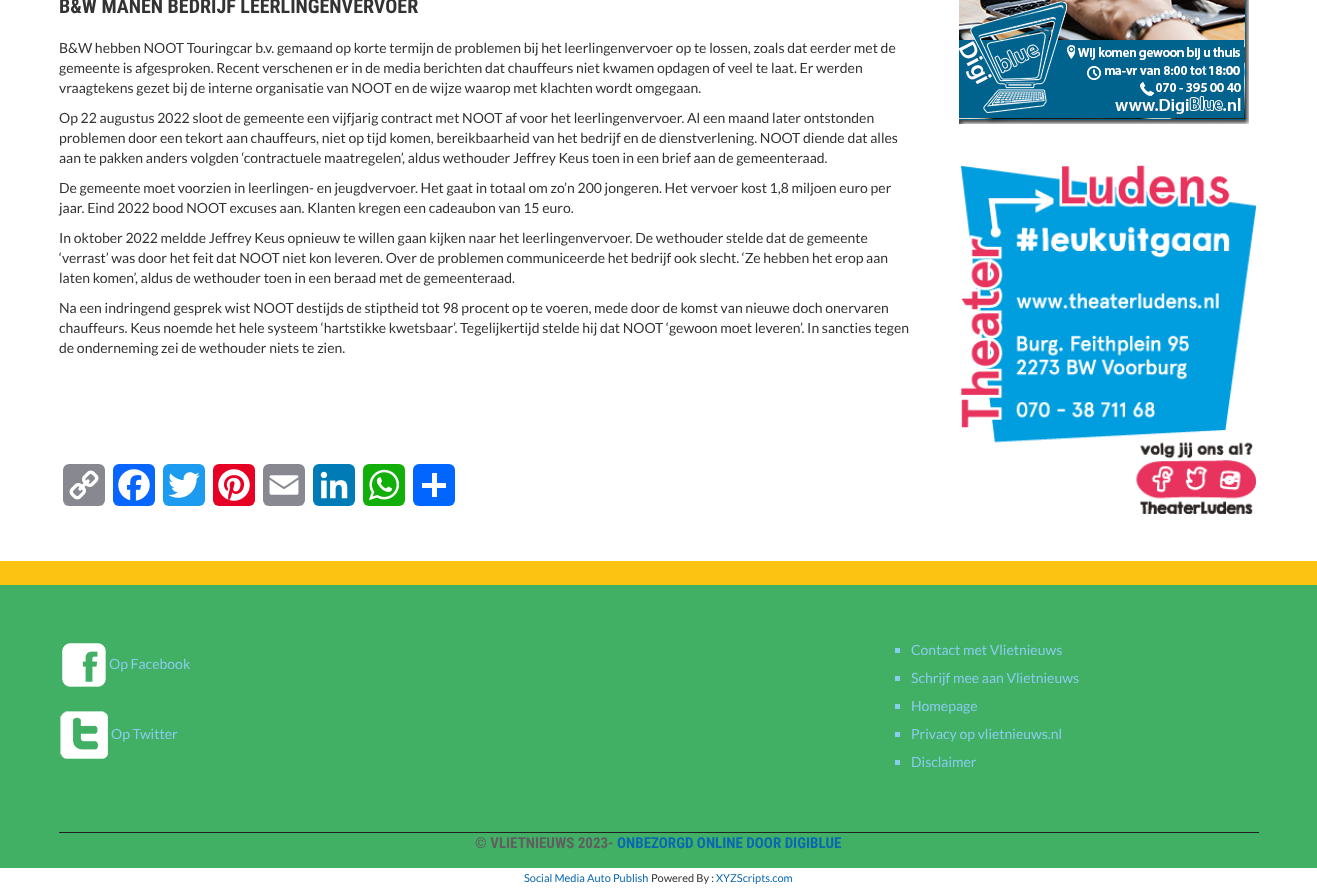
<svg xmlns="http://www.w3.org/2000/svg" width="1317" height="888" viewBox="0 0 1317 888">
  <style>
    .t1 { font: bold 20px Roboto Condensed; fill: #333; }
    .t2 { font: 14px Lato; fill: #333; }
    .t3 { font: 14px Lato; fill: #8accee; }
    .t4 { font: bold 15px Roboto Condensed; fill: #5f5f5f; }
    .t5 { font: bold 15px Roboto Condensed; fill: #0a68b2; }
    .t6 { font: 11px Lato; fill: #0a68b2; }
    .t7 { font: 11px Lato; fill: #333; }
  </style>
  <rect width="100%" height="100%" fill="#fff"/>
  <text x="59" y="13" class="t1">B&amp;W MANEN BEDRIJF LEERLINGENVERVOER</text>
  <text x="59" y="53" class="t2">B&amp;W hebben NOOT Touringcar b.v. gemaand op korte termijn de problemen bij het leerlingenvervoer op te lossen, zoals dat eerder met de</text>
  <text x="59" y="73" class="t2">gemeente is afgesproken. Recent verschenen er in de media berichten dat chauffeurs niet kwamen opdagen of veel te laat. Er werden</text>
  <text x="59" y="93" class="t2">vraagtekens gezet bij de interne organisatie van NOOT en de wijze waarop met klachten wordt omgegaan.</text>
  <text x="59" y="123" class="t2">Op 22 augustus 2022 sloot de gemeente een vijfjarig contract met NOOT af voor het leerlingenvervoer. Al een maand later ontstonden</text>
  <text x="59" y="143" class="t2">problemen door een tekort aan chauffeurs, niet op tijd komen, bereikbaarheid van het bedrijf en de dienstverlening. NOOT diende dat alles</text>
  <text x="59" y="163" class="t2">aan te pakken anders volgden ‘contractuele maatregelen’, aldus wethouder Jeffrey Keus toen in een brief aan de gemeenteraad.</text>
  <text x="59" y="193" class="t2">De gemeente moet voorzien in leerlingen- en jeugdvervoer. Het gaat in totaal om zo’n 200 jongeren. Het vervoer kost 1,8 miljoen euro per</text>
  <text x="59" y="213" class="t2">jaar. Eind 2022 bood NOOT excuses aan. Klanten kregen een cadeaubon van 15 euro.</text>
  <text x="59" y="243" class="t2">In oktober 2022 meldde Jeffrey Keus opnieuw te willen gaan kijken naar het leerlingenvervoer. De wethouder stelde dat de gemeente</text>
  <text x="59" y="263" class="t2">‘verrast’ was door het feit dat NOOT niet kon leveren. Over de problemen communiceerde het bedrijf ook slecht. ‘Ze hebben het erop aan</text>
  <text x="59" y="283" class="t2">laten komen’, aldus de wethouder toen in een beraad met de gemeenteraad.</text>
  <text x="59" y="313" class="t2">Na een indringend gesprek wist NOOT destijds de stiptheid tot 98 procent op te voeren, mede door de komst van nieuwe doch onervaren</text>
  <text x="59" y="333" class="t2">chauffeurs. Keus noemde het hele systeem ‘hartstikke kwetsbaar’. Tegelijkertijd stelde hij dat NOOT ‘gewoon moet leveren’. In sancties tegen</text>
  <text x="59" y="353" class="t2">de onderneming zei de wethouder niets te zien.</text>
  <rect x="63" y="464" width="42" height="42" rx="6" fill="#888990"/>
  <image x="69" y="470" width="30" height="30" href="images/1.png"/>
  <rect x="113" y="464" width="42" height="42" rx="6" fill="#0866ff"/>
  <image x="118" y="469" width="32" height="32" href="images/2.png"/>
  <rect x="163" y="464" width="42" height="42" rx="6" fill="#1d9bf0"/>
  <image x="168" y="472" width="32" height="26" href="images/3.png"/>
  <rect x="213" y="464" width="42" height="42" rx="6" fill="#e60023"/>
  <image x="218" y="469" width="32" height="32" href="images/4.png"/>
  <rect x="263" y="464" width="42" height="42" rx="6" fill="#888990"/>
  <image x="269" y="475" width="30" height="20" href="images/5.png"/>
  <rect x="313" y="464" width="42" height="42" rx="6" fill="#007bb5"/>
  <image x="320" y="471" width="28" height="28" href="images/6.png"/>
  <rect x="363" y="464" width="42" height="42" rx="6" fill="#12af0a"/>
  <image x="369" y="469" width="31" height="32" href="images/7.png"/>
  <rect x="413" y="464" width="42" height="42" rx="6" fill="#0166ff"/>
  <rect x="432" y="473" width="5" height="24" fill="#fff"/>
  <rect x="422" y="483" width="24" height="5" fill="#fff"/>
  <image x="959" y="0" width="290" height="124" href="images/8.png"/>
  <image x="961" y="165" width="296" height="349" href="images/9.png"/>
  <rect x="0" y="585" width="1317" height="283" fill="#41b064"/>
  <rect x="0" y="561" width="1317" height="24" fill="#fcc312"/>
  <image x="62" y="643" width="44" height="44" href="images/10.png"/>
  <text x="109" y="669" class="t3">Op Facebook</text>
  <image x="60" y="711" width="48" height="48" href="images/11.png"/>
  <text x="111" y="739" class="t3">Op Twitter</text>
  <rect x="895" y="648" width="5" height="5" fill="#8accee"/>
  <text x="911" y="655" class="t3">Contact met Vlietnieuws</text>
  <rect x="895" y="676" width="5" height="5" fill="#8accee"/>
  <text x="911" y="683" class="t3">Schrijf mee aan Vlietnieuws</text>
  <rect x="895" y="704" width="5" height="5" fill="#8accee"/>
  <text x="911" y="711" class="t3">Homepage</text>
  <rect x="895" y="732" width="5" height="5" fill="#8accee"/>
  <text x="911" y="739" class="t3">Privacy op vlietnieuws.nl</text>
  <rect x="895" y="760" width="5" height="5" fill="#8accee"/>
  <text x="911" y="767" class="t3">Disclaimer</text>
  <rect x="59" y="832" width="1200" height="1" fill="#222"/>
  <text x="475" y="848" class="t4">© VLIETNIEUWS 2023-</text>
  <text x="617" y="848" class="t5">ONBEZORGD ONLINE DOOR DIGIBLUE</text>
  <text x="524" y="882" class="t6">Social Media Auto Publish</text>
  <text x="651" y="882" class="t7">Powered By :</text>
  <text x="716" y="882" class="t6">XYZScripts.com</text>
</svg>
